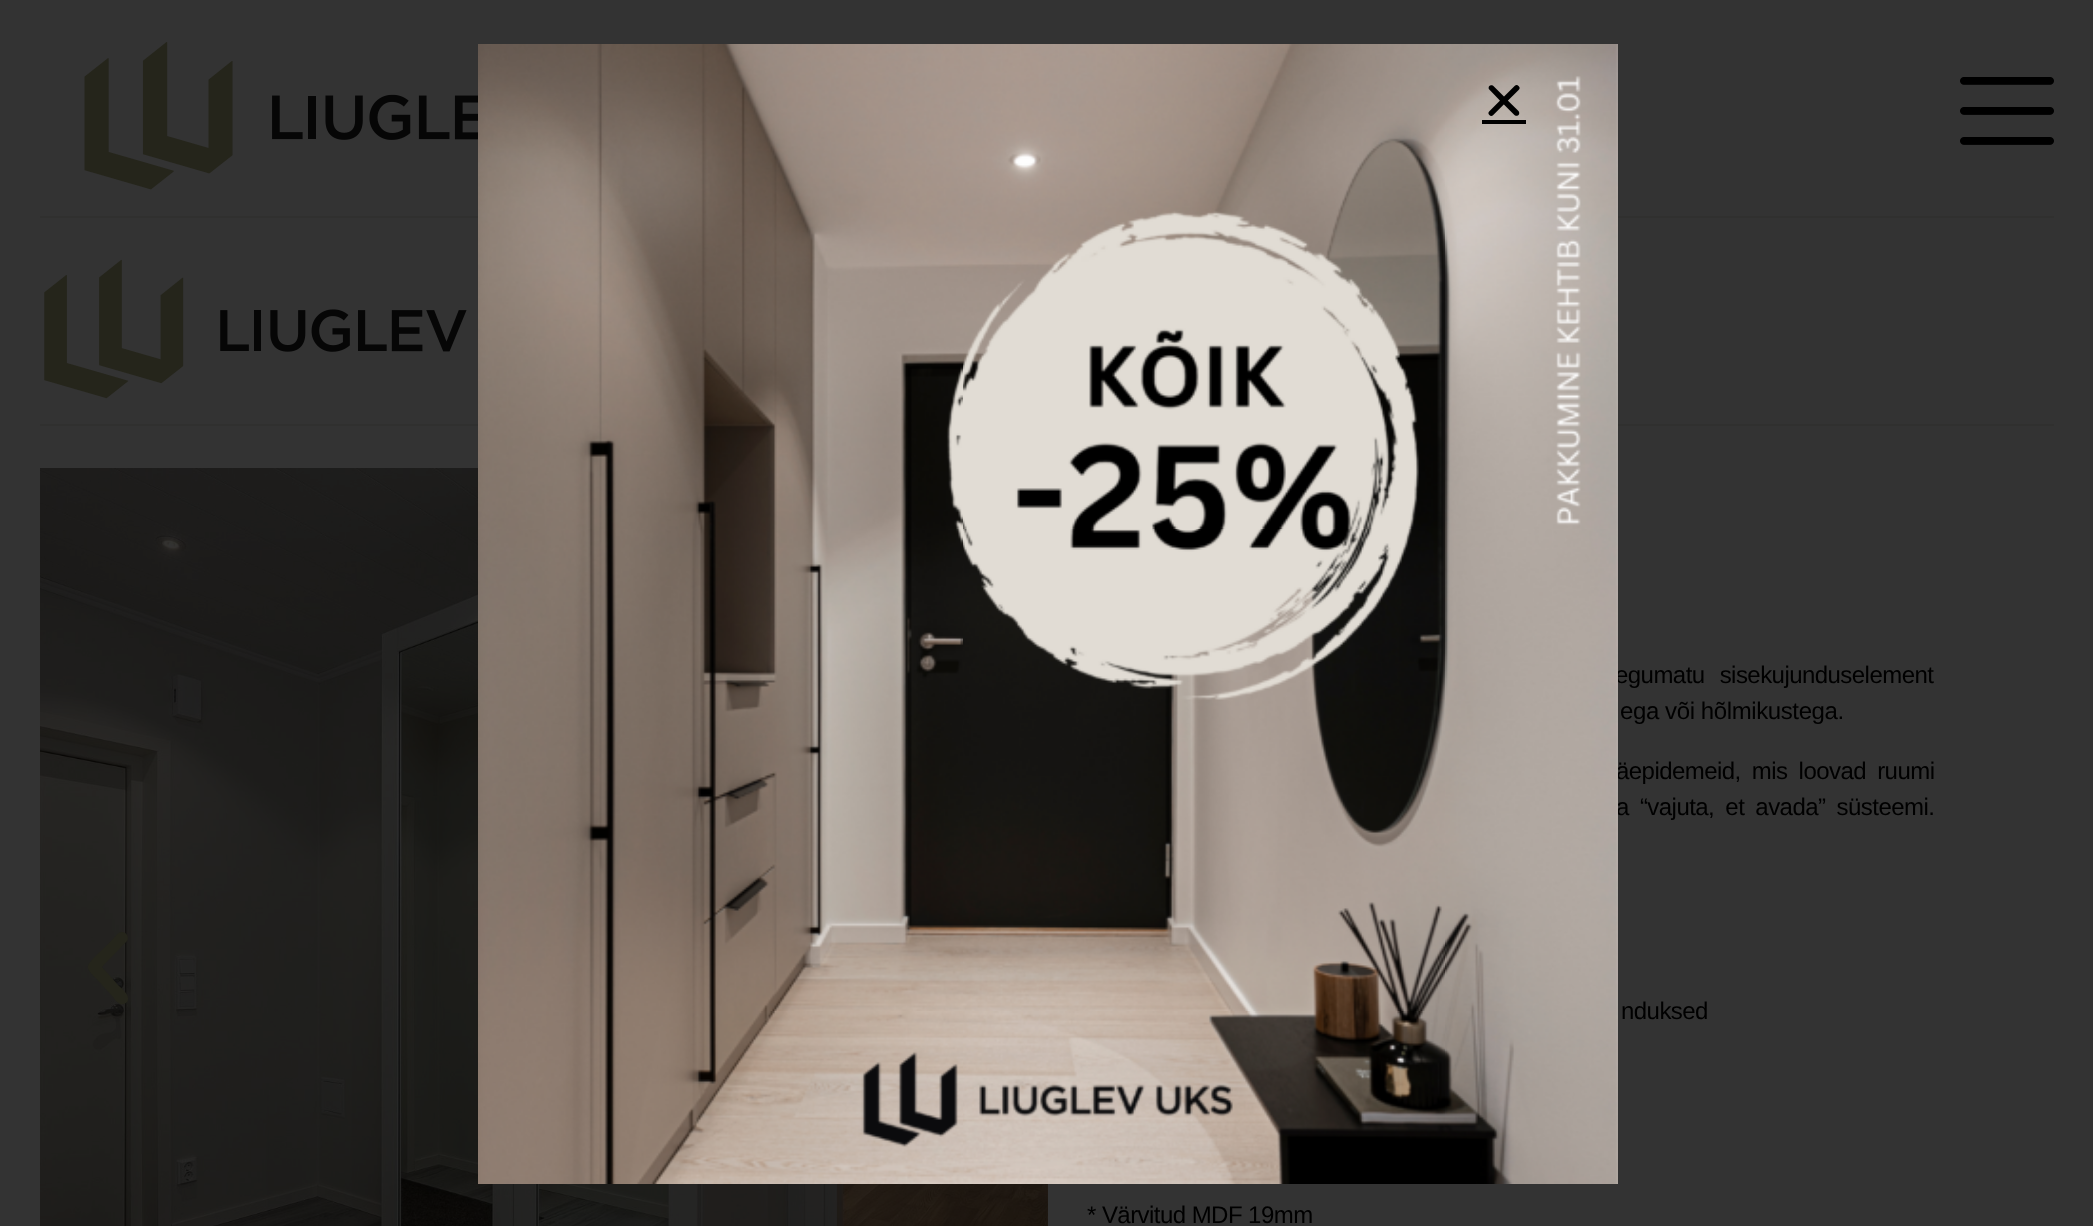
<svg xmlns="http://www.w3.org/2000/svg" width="2093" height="1226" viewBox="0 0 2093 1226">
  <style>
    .t1 { font: 24px Liberation Sans; letter-spacing: -0.55px; fill: #000; }
    .t2 { font: 24px Liberation Sans; letter-spacing: -0.4px; fill: #000; }
  </style>
  <rect width="100%" height="100%" fill="#333"/>
  <rect x="40" y="216" width="2014" height="2" fill="#30302f"/>
  <image x="84" y="42" width="394" height="148" href="images/1.png"/>
  <image x="1960" y="77" width="94" height="68" href="images/2.png"/>
  <rect x="40" y="424" width="2014" height="2" fill="#30302f"/>
  <image x="44" y="259" width="423" height="140" href="images/3.png"/>
  <image x="40" y="468" width="1008" height="758" href="images/6.png"/>
  <text x="1615" y="683" word-spacing="9" class="t1">egumatu sisekujunduselement</text>
  <text x="1616" y="779" word-spacing="5" class="t1">äepidemeid, mis loovad ruumi</text>
  <text x="1616" y="815" word-spacing="5" class="t1">a “vajuta, et avada” süsteemi.</text>
  <image x="478" y="44" width="1140" height="1140" href="images/4.png"/>
  <image x="1488" y="85" width="32" height="31" href="images/5.png"/>
  <rect x="1482" y="120" width="44" height="4" fill="#000"/>
  <path d="M122 932C118 932 115 937 113 939L104 948C82 970 83 964 104 987L113 997C116 1001 120 1007 126 1003C127 1002 128 1001 128 999C129 994 121 988 118 985L102 967L122 946C125 943 130 940 127 935C126 933 124 932 122 932Z" fill="#25251b"/>
  <text x="1620" y="719" class="t2">ega või hõlmikustega.</text>
  <text x="1621" y="1019" class="t1">nduksed</text>
  <text x="1087" y="1223" class="t1">* Värvitud MDF 19mm</text>
</svg>
